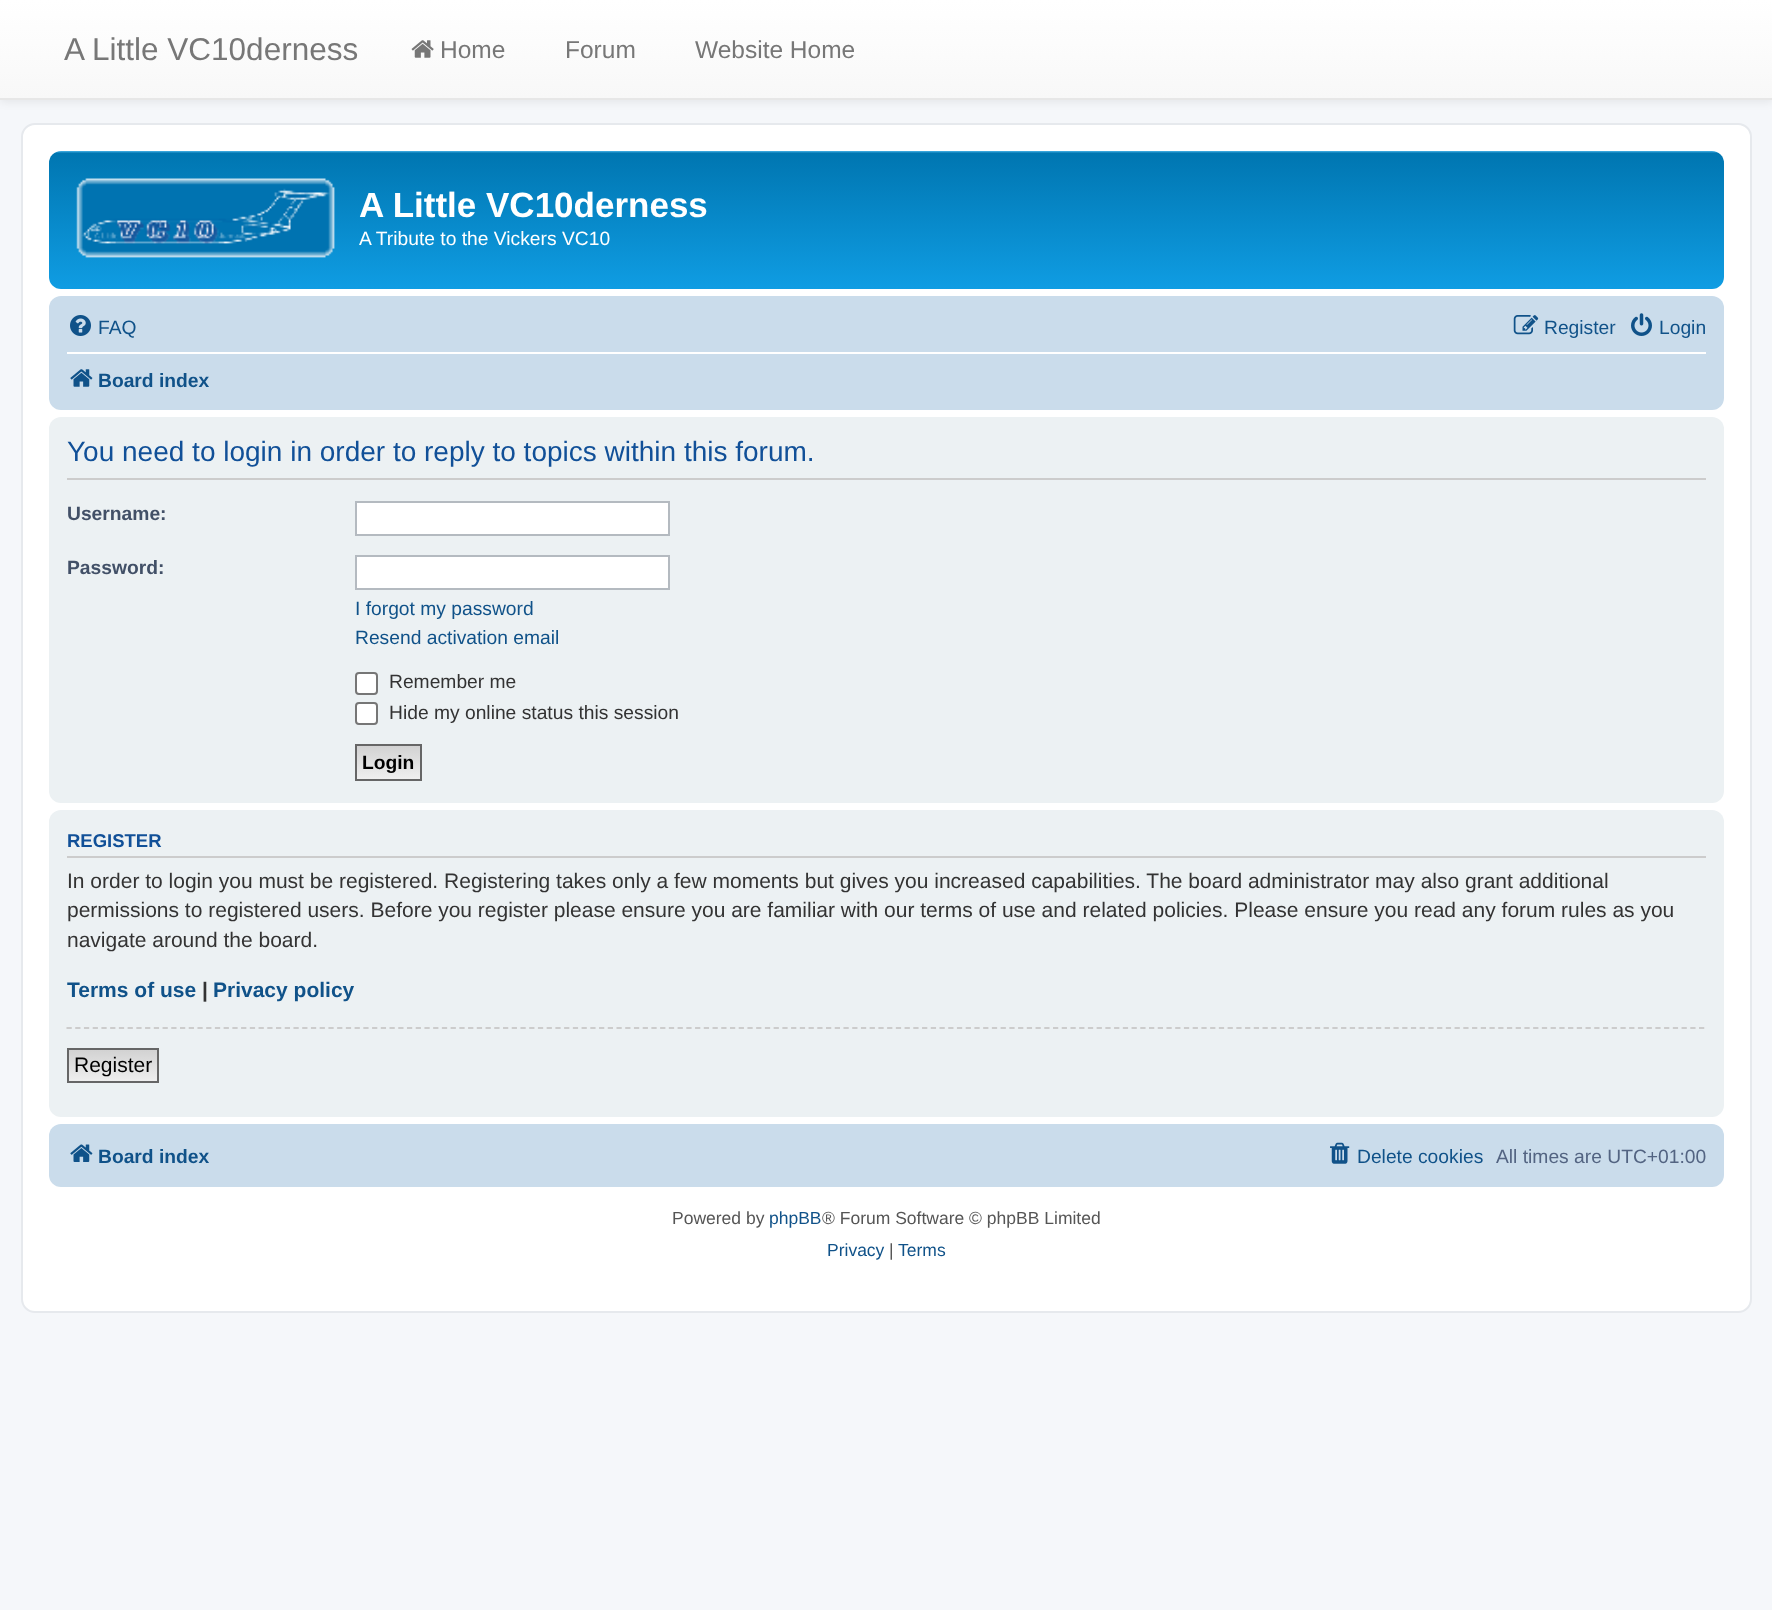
<svg xmlns="http://www.w3.org/2000/svg" width="1772" height="1610" viewBox="0 0 1772 1610">
  <style>
    .t1 { font: 31.5px Liberation Sans; fill: #777; }
    .t2 { font: 24.5px Liberation Sans; fill: #777; }
    .t3 { font: bold 35px Liberation Sans; fill: #fff; }
    .t4 { font: 19.25px Liberation Sans; fill: #fff; }
    .t5 { font: 19.25px Liberation Sans; fill: #105289; }
    .t6 { font: bold 19.25px Liberation Sans; fill: #105289; }
    .t7 { font: 28px Liberation Sans; fill: #115098; }
    .t8 { font: bold 19.25px Liberation Sans; fill: #425067; }
    .t9 { font: 19.25px Liberation Sans; fill: #333; }
    .t10 { font: bold 19.25px Liberation Sans; fill: #000; }
    .t11 { font: bold 18.5px Liberation Sans; fill: #115098; }
    .t12 { font: 21px Liberation Sans; fill: #333; }
    .t13 { font: bold 21px Liberation Sans; fill: #105289; }
    .t14 { font: bold 21px Liberation Sans; fill: #333; }
    .t15 { font: 21px Liberation Sans; fill: #000; }
    .t16 { font: 19.25px Liberation Sans; fill: #536482; }
    .t17 { font: 17.5px Liberation Sans; fill: #555; }
    .t18 { font: 17.5px Liberation Sans; fill: #105289; }
  </style>
  <defs>
    <linearGradient id="g1" gradientUnits="userSpaceOnUse" x1="886" y1="0" x2="886" y2="98"><stop offset="0" stop-color="#fff"/><stop offset="1" stop-color="#f8f8f8"/></linearGradient>
    <linearGradient id="g2" gradientUnits="userSpaceOnUse" x1="886" y1="150" x2="886" y2="311"><stop offset="0" stop-color="#6aceff"/><stop offset="0.02" stop-color="#0076b1"/><stop offset="1" stop-color="#12a3eb"/></linearGradient>
    <linearGradient id="g3" gradientUnits="userSpaceOnUse" x1="389" y1="746" x2="389" y2="779"><stop offset="0" stop-color="#d2d2d2"/><stop offset="1" stop-color="#efefef"/></linearGradient>
    <clipPath id="clip1"><rect x="67" y="819" width="1639" height="289"/></clipPath>
    <linearGradient id="g4" gradientUnits="userSpaceOnUse" x1="113" y1="1050" x2="113" y2="1082"><stop offset="0" stop-color="#d2d2d2"/><stop offset="1" stop-color="#efefef"/></linearGradient>
  </defs>
  <rect width="100%" height="100%" fill="#f5f7fa"/>
  <rect x="0" y="2" width="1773" height="100" fill="#00000012" filter="blur(4.5px)"/>
  <rect x="0" y="0" width="1772" height="98" fill="url(#g1)"/>
  <rect x="0" y="98" width="1772" height="2" fill="#e7e7e7"/>
  <text x="64" y="60" class="t1">A Little VC10derness</text>
  <image x="411" y="40" width="23" height="18" href="images/1.png"/>
  <text x="440" y="58" class="t2">Home</text>
  <text x="565" y="58" class="t2">Forum</text>
  <text x="695" y="58" class="t2">Website Home</text>
  <rect x="22" y="124" width="1729" height="1188" rx="13" fill="#fff" stroke="#e6e9ed" stroke-width="2"/>
  <rect x="49" y="151" width="1675" height="138" rx="12" fill="url(#g2)"/>
  <image x="76" y="178" width="259" height="80" href="images/2.png"/>
  <text x="359" y="217" class="t3">A Little VC10derness</text>
  <text x="359" y="245" class="t4">A Tribute to the Vickers VC10</text>
  <rect x="49" y="296" width="1675" height="114" rx="12" fill="#cadceb"/>
  <image x="70" y="315" width="21" height="21" href="images/3.png"/>
  <text x="98" y="334" class="t5">FAQ</text>
  <image x="1513" y="315" width="26" height="20" href="images/4.png"/>
  <text x="1544" y="334" class="t5">Register</text>
  <image x="1631" y="313" width="21" height="23" href="images/5.png"/>
  <text x="1659" y="334" class="t5">Login</text>
  <rect x="67" y="352" width="1639" height="2" fill="#fff"/>
  <image x="70" y="369" width="23" height="18" href="images/6.png"/>
  <text x="98" y="387" class="t6">Board index</text>
  <rect x="49" y="417" width="1675" height="386" rx="12" fill="#ecf1f3"/>
  <rect x="67" y="478" width="1639" height="2" fill="#ccc"/>
  <text x="67" y="461" class="t7">You need to login in order to reply to topics within this forum.</text>
  <text x="67" y="520" class="t8">Username:</text>
  <rect x="356" y="502" width="313" height="33" fill="#fff" stroke="#b4bac0" stroke-width="2"/>
  <text x="67" y="574" class="t8">Password:</text>
  <rect x="356" y="556" width="313" height="33" fill="#fff" stroke="#b4bac0" stroke-width="2"/>
  <text x="355" y="615" class="t5">I forgot my password</text>
  <text x="355" y="644" class="t5">Resend activation email</text>
  <rect x="356" y="673" width="21" height="21" rx="3" fill="#fff" stroke="#767676" stroke-width="2"/>
  <text x="389" y="688" class="t9">Remember me</text>
  <rect x="356" y="703" width="21" height="21" rx="3" fill="#fff" stroke="#767676" stroke-width="2"/>
  <text x="389" y="719" class="t9">Hide my online status this session</text>
  <rect x="357" y="746" width="63" height="33" fill="url(#g3)"/>
  <rect x="356" y="745" width="65" height="35" fill="none" stroke="#666" stroke-width="2"/>
  <text x="362" y="769" class="t10">Login</text>
  <rect x="49" y="810" width="1675" height="307" rx="12" fill="#ecf1f3"/>
  <rect x="67" y="856" width="1639" height="2" fill="#ccc"/>
  <text x="67" y="847" class="t11">REGISTER</text>
  <text x="67" y="888" class="t12">In order to login you must be registered. Registering takes only a few moments but gives you increased capabilities. The board administrator may also grant additional</text>
  <text x="67" y="917" class="t12">permissions to registered users. Before you register please ensure you are familiar with our terms of use and related policies. Please ensure you read any forum rules as you</text>
  <text x="67" y="947" class="t12">navigate around the board.</text>
  <g clip-path="url(#clip1)">
    <text x="67" y="997" class="t13">Terms of use</text>
  </g>
  <text x="202" y="997" class="t14">|</text>
  <text x="213" y="997" class="t13">Privacy policy</text>
  <path d="M66.5 1028H1706" fill="none" stroke="#ccc" stroke-width="1.8" stroke-dasharray="5.25 3.48"/>
  <rect x="69" y="1050" width="88" height="31" fill="url(#g4)"/>
  <rect x="68" y="1049" width="90" height="33" fill="none" stroke="#666" stroke-width="2"/>
  <text x="74" y="1072" class="t15">Register</text>
  <rect x="49" y="1124" width="1675" height="63" rx="12" fill="#cadceb"/>
  <image x="70" y="1144" width="23" height="18" href="images/7.png"/>
  <text x="98" y="1163" class="t6">Board index</text>
  <image x="1330" y="1142" width="20" height="22" href="images/8.png"/>
  <text x="1357" y="1163" class="t5">Delete cookies</text>
  <text x="1496" y="1163" class="t16">All times are UTC+01:00</text>
  <text x="672" y="1224" class="t17">Powered by</text>
  <text x="769" y="1224" class="t18">phpBB</text>
  <text x="822" y="1224" class="t17">® Forum Software © phpBB Limited</text>
  <text x="827" y="1256" class="t18">Privacy</text>
  <text x="889" y="1256" class="t17">|</text>
  <text x="898" y="1256" class="t18">Terms</text>
</svg>
